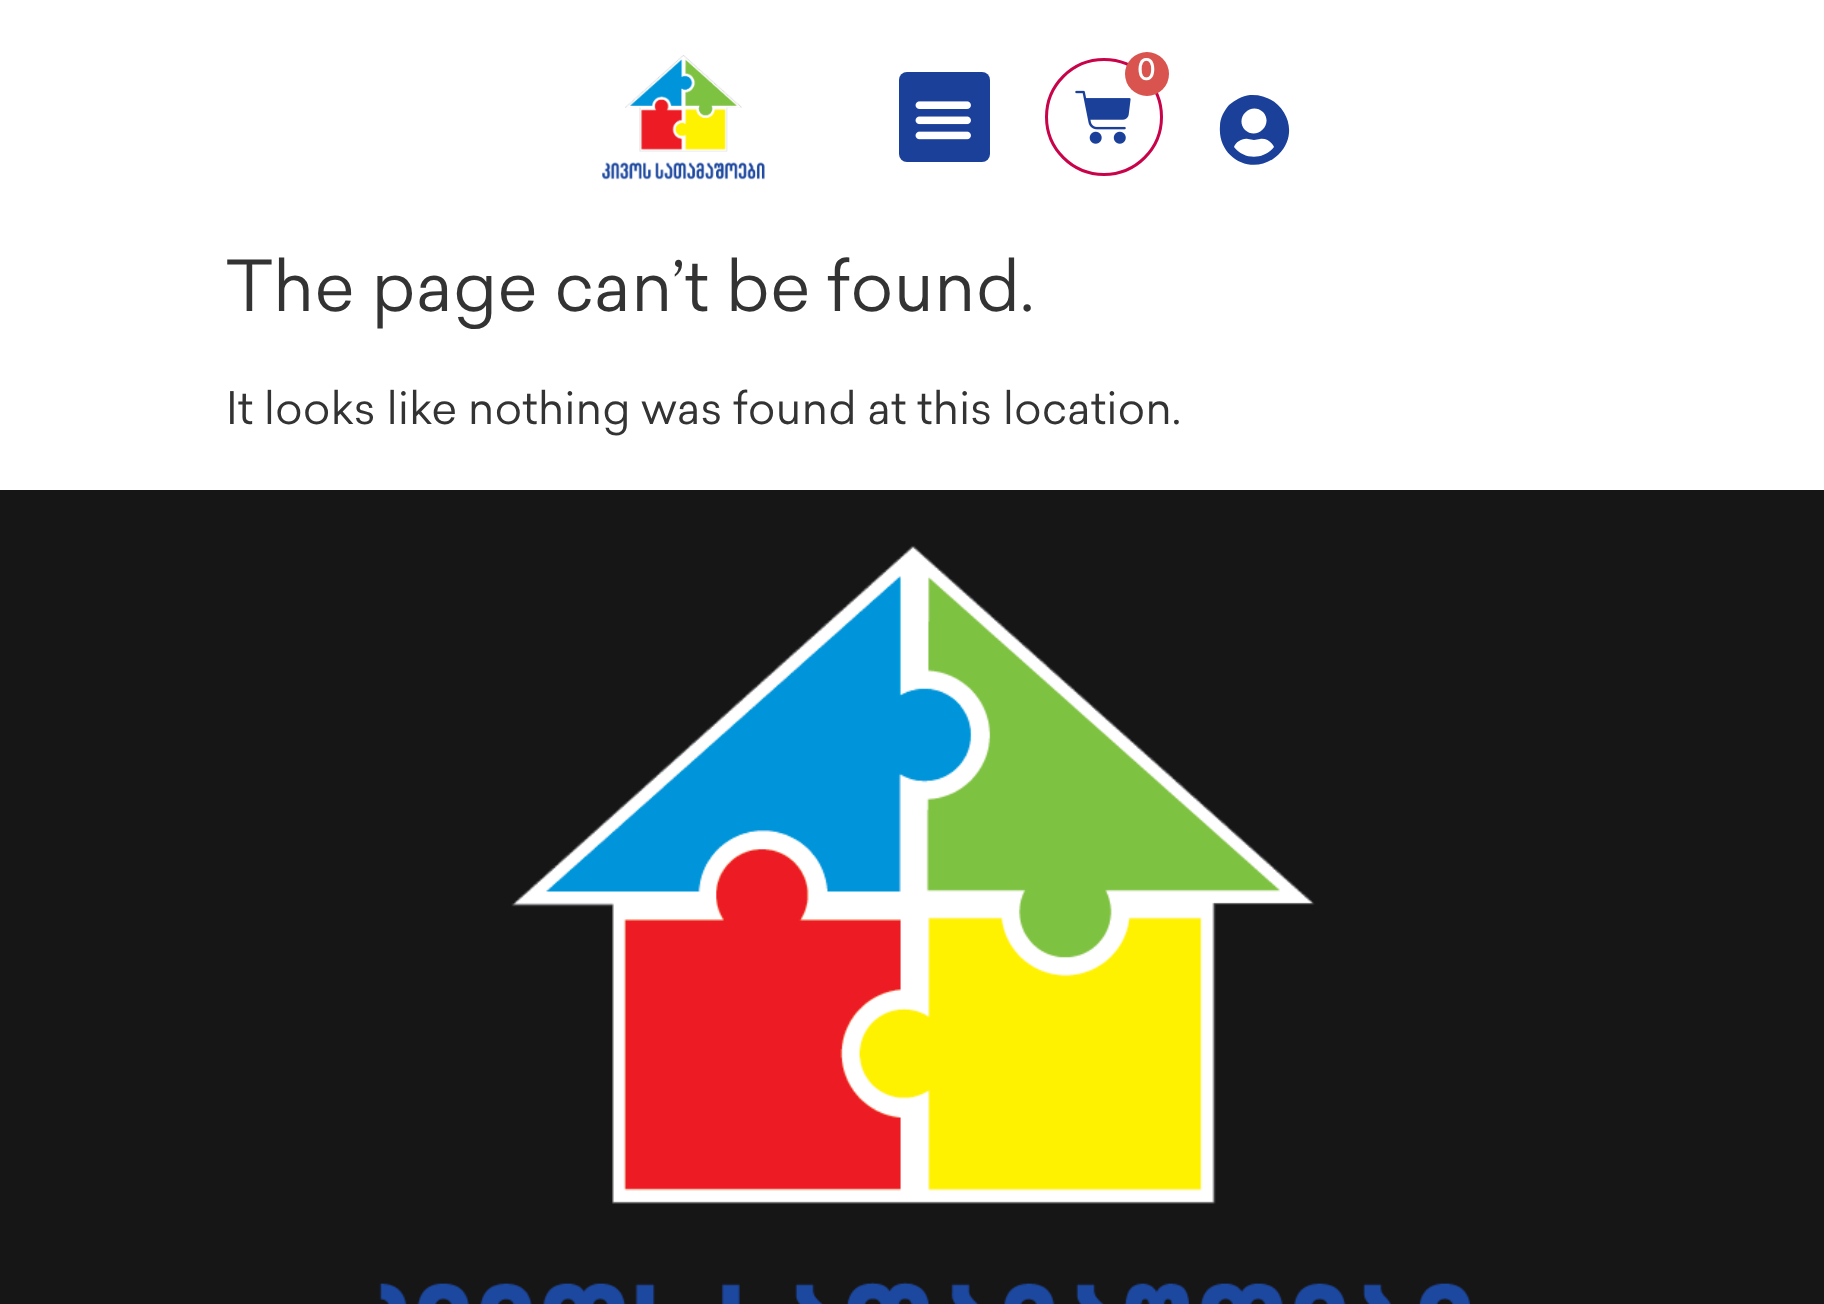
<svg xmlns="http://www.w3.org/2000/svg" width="1824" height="1304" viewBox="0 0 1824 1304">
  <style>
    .t1 { font: bold 28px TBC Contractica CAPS; fill: #fff; }
    .t2 { font: 68.75px TBC Contractica CAPS; fill: #333; }
    .t3 { font: 44px TBC Contractica CAPS; fill: #333; }
  </style>
  <rect width="100%" height="100%" fill="#fff"/>
  <image x="602" y="55" width="163" height="125" href="images/1.png"/>
  <rect x="899" y="72" width="91" height="90" rx="8" fill="#1b409a"/>
  <image x="915" y="101" width="56" height="39" href="images/2.png"/>
  <circle cx="1104" cy="117" r="57.5" fill="none" stroke="#c8034a" stroke-width="3"/>
  <image x="1075" y="90" width="56" height="54" href="images/3.png"/>
  <circle cx="1147" cy="74" r="22" fill="#d9534f"/>
  <text x="1137" y="80" class="t1">0</text>
  <path d="M1229 105C1235 100 1242 96 1250 95C1283 93 1302 131 1279 154C1255 178 1217 159 1220 126C1220 118 1224 111 1229 105ZM1263 112C1251 101 1234 118 1245 130C1257 141 1274 124 1263 112ZM1234 147C1244 160 1264 160 1274 147C1272 142 1266 138 1260 139L1254 140L1248 139C1242 138 1236 142 1234 147Z" fill="#1b409a"/>
  <text x="226" y="311" class="t2">The page can’t be found.</text>
  <text x="226" y="424" class="t3">It looks like nothing was found at this location.</text>
  <rect x="0" y="490" width="1824" height="814" fill="#171616"/>
  <image x="379" y="545" width="1092" height="759" href="images/4.png"/>
</svg>
